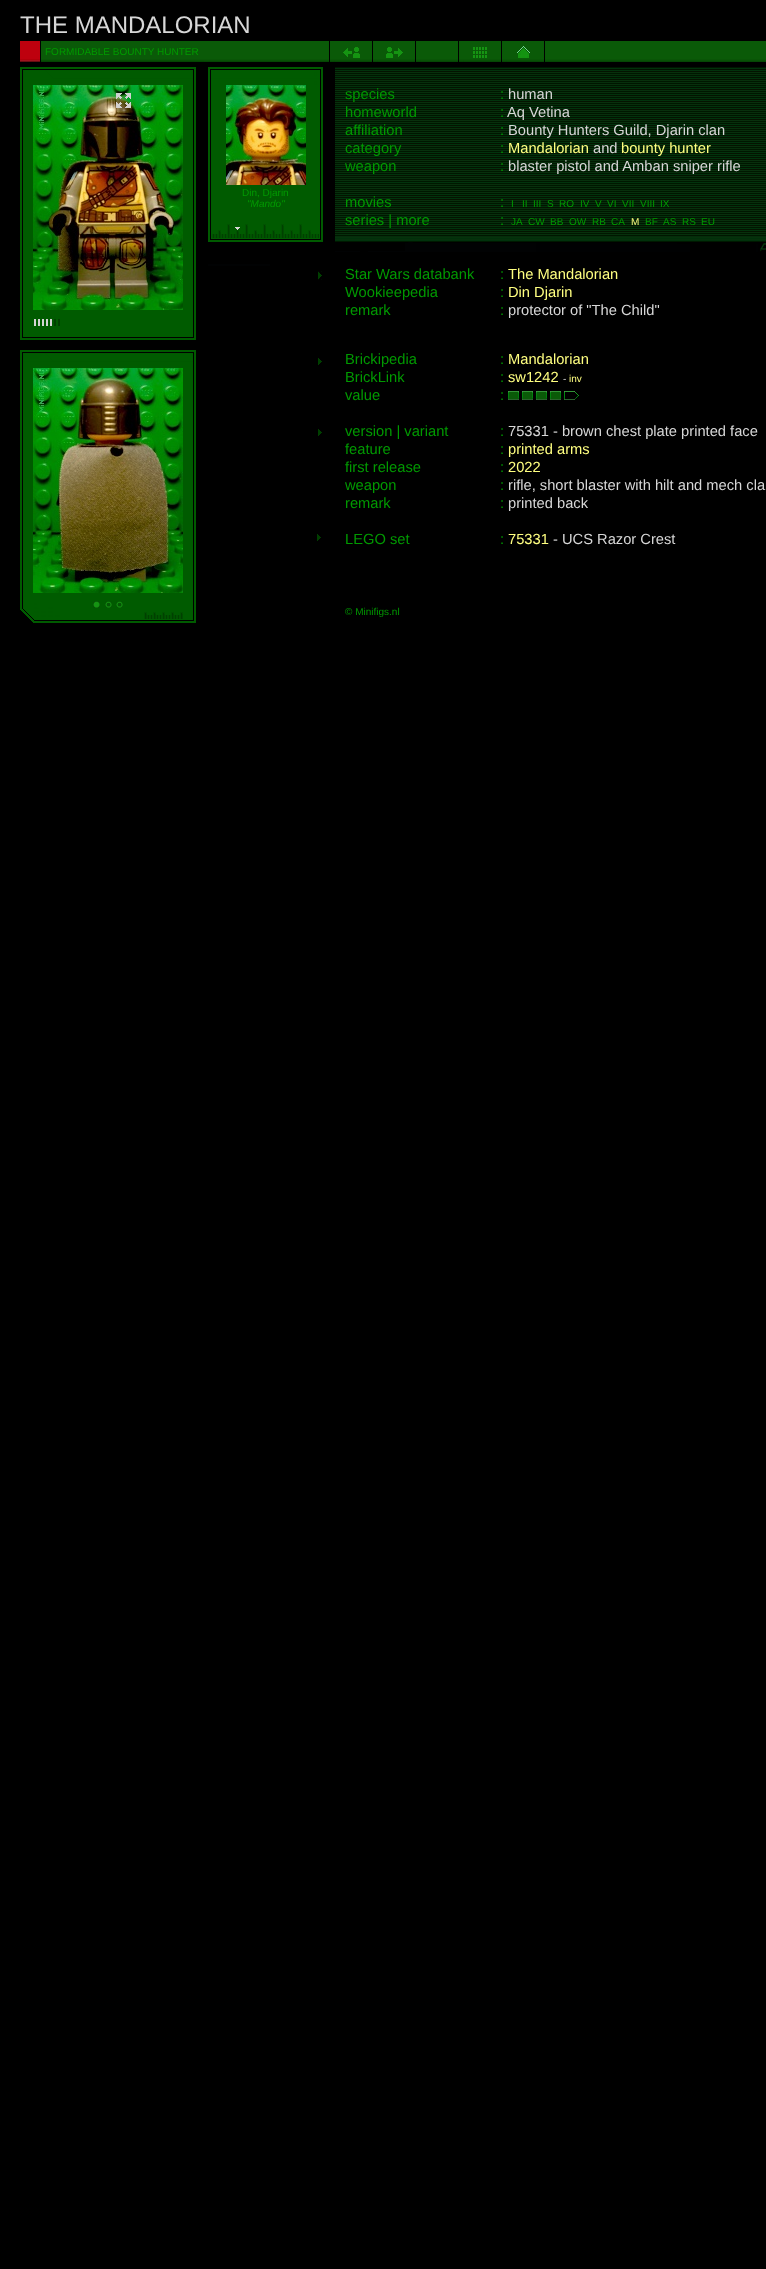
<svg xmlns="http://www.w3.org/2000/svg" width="766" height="2269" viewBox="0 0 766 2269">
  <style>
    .t1 { font: 24px Liberation Sans; fill: #d7d7d7; }
    .t2 { font: 10px Liberation Sans; fill: #090; }
    .t3 { font: italic 10px Liberation Sans; fill: #090; }
    .t4 { font: 14.7px Liberation Sans; fill: #090; }
    .t5 { font: 14.7px Liberation Sans; fill: #d7d7d7; }
    .t6 { font: 14.7px Liberation Sans; fill: #ffff80; }
    .t7 { font: 10px Liberation Sans; fill: #ffff80; }
    .t8 { font: 10px Liberation Sans; fill: #d7d7d7; }
  </style>
  <rect width="100%" height="100%" fill="#000"/>
  <text x="20" y="33" class="t1">THE MANDALORIAN</text>
  <image x="20" y="41" width="309" height="21" href="images/1.png"/>
  <text x="45" y="55" class="t2">FORMIDABLE BOUNTY HUNTER</text>
  <image x="330" y="41" width="42" height="21" href="images/2.png"/>
  <image x="343" y="47" width="17" height="11" href="images/3.png"/>
  <image x="373" y="41" width="42" height="21" href="images/2.png"/>
  <image x="386" y="47" width="17" height="11" href="images/4.png"/>
  <image x="416" y="41" width="42" height="21" href="images/2.png"/>
  <image x="459" y="41" width="42" height="21" href="images/2.png"/>
  <image x="473" y="47" width="14" height="11" href="images/5.png"/>
  <image x="502" y="41" width="42" height="21" href="images/2.png"/>
  <image x="517" y="46" width="13" height="12" href="images/6.png"/>
  <image x="545" y="41" width="221" height="21" href="images/7.png"/>
  <image x="20" y="67" width="176" height="273" href="images/9.png"/>
  <image x="33" y="85" width="150" height="225" href="images/10.png"/>
  <image x="116" y="93" width="15" height="15" href="images/8.png"/>
  <image x="208" y="67" width="115" height="213" href="images/11.png"/>
  <image x="226" y="85" width="80" height="100" href="images/12.png"/>
  <text x="242" y="196" class="t2">Din, Djarin</text>
  <text x="247" y="207" class="t3">"Mando"</text>
  <image x="335" y="67" width="431" height="185" href="images/13.png"/>
  <text x="345" y="99" class="t4">species</text>
  <text x="500" y="99" class="t4">:</text>
  <text x="508" y="99" class="t5">human</text>
  <text x="345" y="117" class="t4">homeworld</text>
  <text x="500" y="117" class="t4">:</text>
  <text x="507" y="117" class="t5">Aq Vetina</text>
  <text x="345" y="135" class="t4">affiliation</text>
  <text x="500" y="135" class="t4">:</text>
  <text x="508" y="135" class="t5">Bounty Hunters Guild, Djarin clan</text>
  <text x="345" y="153" class="t4">category</text>
  <text x="500" y="153" class="t4">:</text>
  <text x="508" y="153" class="t6">Mandalorian</text>
  <text x="593" y="153" class="t5">and</text>
  <text x="621" y="153" class="t6">bounty hunter</text>
  <text x="345" y="171" class="t4">weapon</text>
  <text x="500" y="171" class="t4">:</text>
  <text x="508" y="171" class="t5">blaster pistol and Amban sniper rifle</text>
  <text x="345" y="207" class="t4">movies</text>
  <text x="500" y="207" class="t4">:</text>
  <text x="511" y="207" class="t2">I</text>
  <text x="522" y="207" class="t2">II</text>
  <text x="533" y="207" class="t2">III</text>
  <text x="547" y="207" class="t2">S</text>
  <text x="559" y="207" class="t2">RO</text>
  <text x="580" y="207" class="t2">IV</text>
  <text x="595" y="207" class="t2">V</text>
  <text x="607" y="207" class="t2">VI</text>
  <text x="622" y="207" class="t2">VII</text>
  <text x="640" y="207" class="t2">VIII</text>
  <text x="660" y="207" class="t2">IX</text>
  <text x="345" y="225" class="t4">series | more</text>
  <text x="500" y="225" class="t4">:</text>
  <text x="511" y="225" class="t2">JA</text>
  <text x="528" y="225" class="t2">CW</text>
  <text x="550" y="225" class="t2">BB</text>
  <text x="569" y="225" class="t2">OW</text>
  <text x="592" y="225" class="t2">RB</text>
  <text x="611" y="225" class="t2">CA</text>
  <text x="631" y="225" class="t7">M</text>
  <text x="645" y="225" class="t2">BF</text>
  <text x="663" y="225" class="t2">AS</text>
  <text x="682" y="225" class="t2">RS</text>
  <text x="701" y="225" class="t2">EU</text>
  <text x="345" y="279" class="t4">Star Wars databank</text>
  <text x="500" y="279" class="t4">:</text>
  <text x="508" y="279" class="t6">The Mandalorian</text>
  <text x="345" y="297" class="t4">Wookieepedia</text>
  <text x="500" y="297" class="t4">:</text>
  <text x="508" y="297" class="t6">Din Djarin</text>
  <text x="345" y="315" class="t4">remark</text>
  <text x="500" y="315" class="t4">:</text>
  <text x="508" y="315" class="t5">protector of "The Child"</text>
  <image x="20" y="350" width="176" height="273" href="images/14.png"/>
  <image x="33" y="368" width="150" height="225" href="images/15.png"/>
  <image x="93" y="601" width="7" height="7" href="images/16.png"/>
  <image x="105" y="601" width="7" height="7" href="images/17.png"/>
  <image x="116" y="601" width="7" height="7" href="images/17.png"/>
  <image x="317" y="358" width="5" height="183" href="images/18.png"/>
  <text x="345" y="364" class="t4">Brickipedia</text>
  <text x="500" y="364" class="t4">:</text>
  <text x="508" y="364" class="t6">Mandalorian</text>
  <text x="345" y="382" class="t4">BrickLink</text>
  <text x="500" y="382" class="t4">:</text>
  <text x="508" y="382" class="t6">sw1242</text>
  <text x="563" y="382" class="t8">-</text>
  <text x="569" y="382" class="t7">inv</text>
  <text x="345" y="400" class="t4">value</text>
  <text x="500" y="400" class="t4">:</text>
  <image x="508" y="391" width="71" height="9" href="images/19.png"/>
  <text x="345" y="436" class="t4">version | variant</text>
  <text x="500" y="436" class="t4">:</text>
  <text x="508" y="436" class="t5">75331 - brown chest plate printed face</text>
  <text x="345" y="454" class="t4">feature</text>
  <text x="500" y="454" class="t4">:</text>
  <text x="508" y="454" class="t6">printed arms</text>
  <text x="345" y="472" class="t4">first release</text>
  <text x="500" y="472" class="t4">:</text>
  <text x="508" y="472" class="t6">2022</text>
  <text x="345" y="490" class="t4">weapon</text>
  <text x="500" y="490" class="t4">:</text>
  <text x="508" y="490" class="t5">rifle, short blaster with hilt and mech cla</text>
  <text x="345" y="508" class="t4">remark</text>
  <text x="500" y="508" class="t4">:</text>
  <text x="508" y="508" class="t5">printed back</text>
  <text x="345" y="544" class="t4">LEGO set</text>
  <text x="500" y="544" class="t4">:</text>
  <text x="508" y="544" class="t6">75331</text>
  <text x="553" y="544" class="t5">- UCS Razor Crest</text>
  <text x="345" y="615" class="t2">© Minifigs.nl</text>
</svg>
